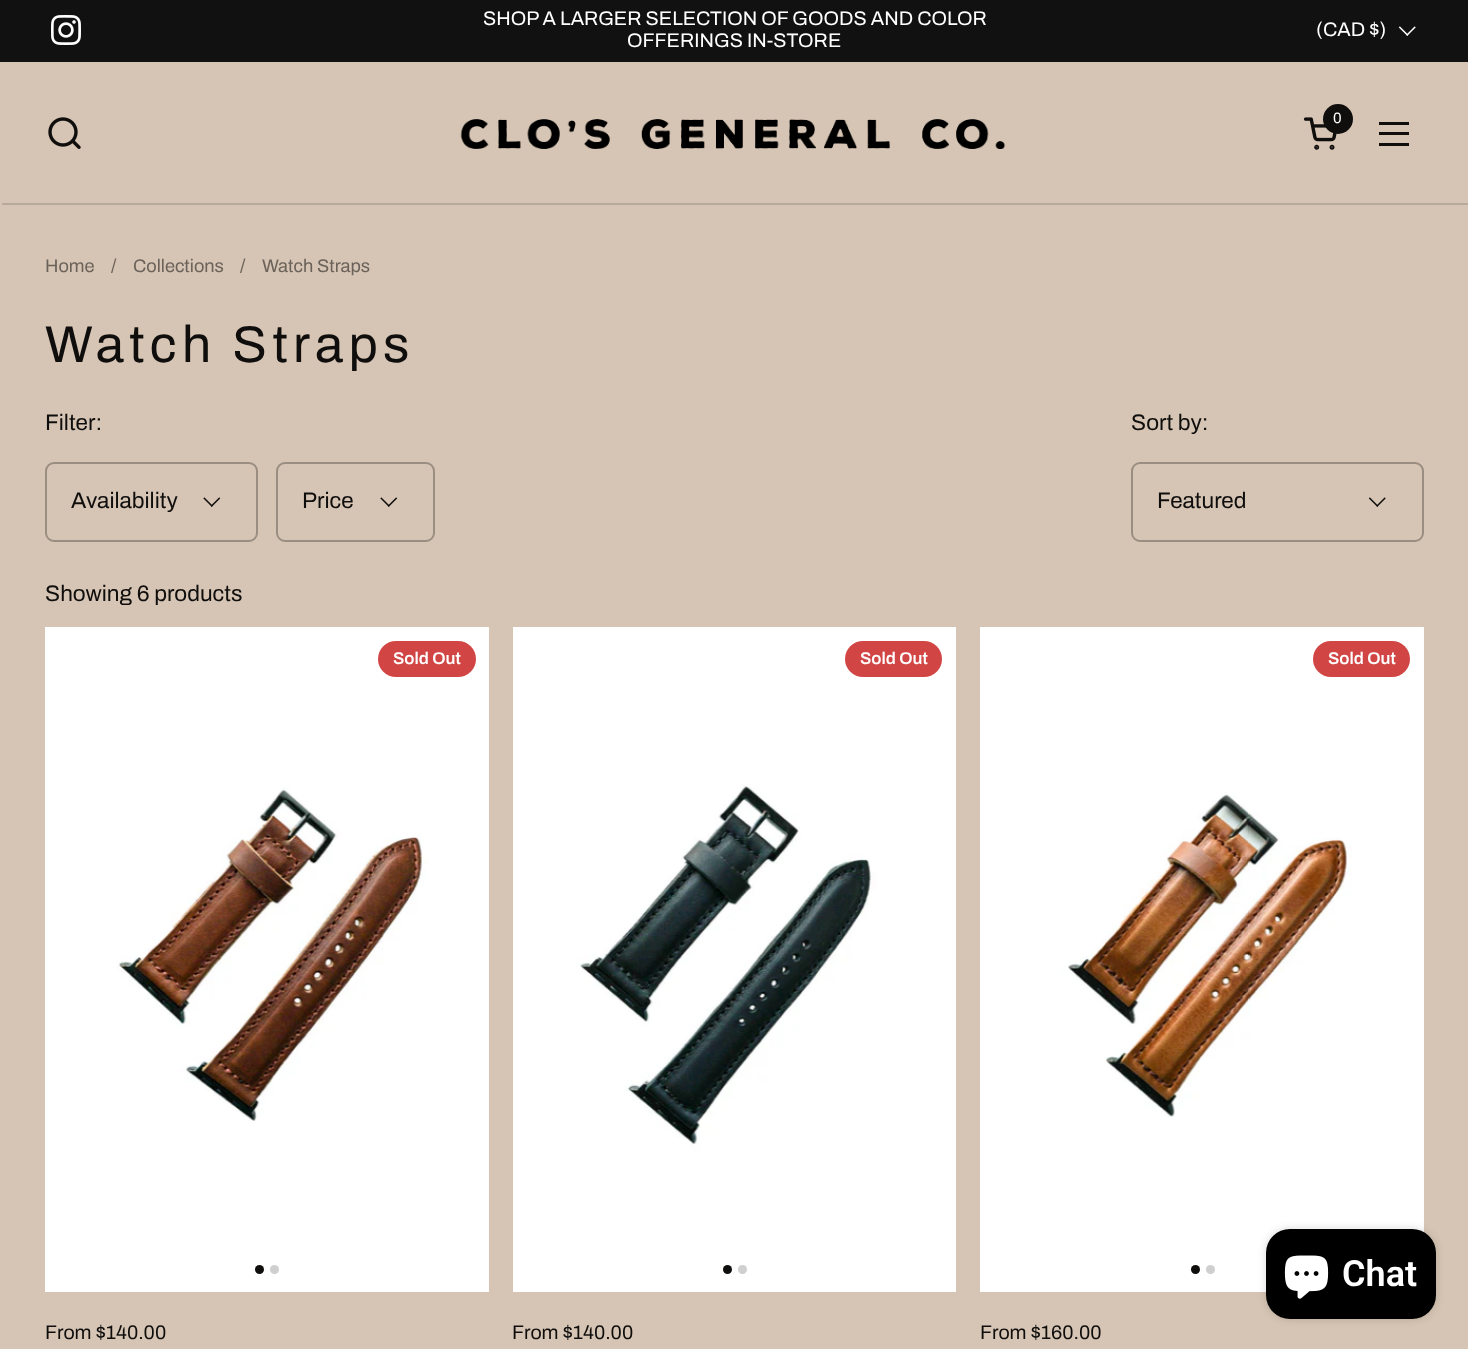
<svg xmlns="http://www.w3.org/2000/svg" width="1468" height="1349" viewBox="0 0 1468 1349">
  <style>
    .t1 { font: 19.7px Archivo; fill: #fff; }
    .t2 { font: 15px Archivo; fill: #fff; }
    .t3 { font: 18.25px Archivo; fill: #6b625a; }
    .t4 { font: 51.75px Archivo; letter-spacing: 5.25px; fill: #0f0e0d; }
    .t5 { font: 22.5px Archivo; fill: #0f0e0d; }
    .t6 { font: 600 17px Archivo; fill: #fff; }
    .t7 { font: 19.7px Archivo; fill: #0f0e0d; }
    .t8 { font: 600 36px Roboto; fill: #fff; }
  </style>
  <rect width="100%" height="100%" fill="#d6c5b4"/>
  <rect x="0" y="0" width="1468" height="62" fill="#111"/>
  <image x="51" y="15" width="30" height="30" href="images/1.png"/>
  <text x="483" y="25" class="t1">SHOP A LARGER SELECTION OF GOODS AND COLOR</text>
  <text x="627" y="47" class="t1">OFFERINGS IN-STORE</text>
  <text x="1316" y="36" class="t1">(CAD $)</text>
  <image x="1398" y="26" width="18" height="10" href="images/2.png"/>
  <image x="48" y="117" width="33" height="32" href="images/3.png"/>
  <image x="460" y="119" width="546" height="30" href="images/4.png"/>
  <circle cx="1338" cy="119" r="15" fill="#0f0e0d"/>
  <text x="1333" y="123" class="t2">0</text>
  <image x="1303" y="117" width="34" height="33" href="images/5.png"/>
  <rect x="1379" y="122" width="30" height="3" fill="#0f0e0d"/>
  <rect x="1379" y="132" width="30" height="3" fill="#0f0e0d"/>
  <rect x="1379" y="143" width="30" height="3" fill="#0f0e0d"/>
  <rect x="2" y="203" width="1466" height="2" fill="#b8aa9b"/>
  <text x="45" y="272" class="t3">Home</text>
  <text x="111" y="272" class="t3">/</text>
  <text x="133" y="272" class="t3">Collections</text>
  <text x="240" y="272" class="t3">/</text>
  <text x="262" y="272" class="t3">Watch Straps</text>
  <text x="45" y="362" class="t4">Watch Straps</text>
  <text x="45" y="430" class="t5">Filter:</text>
  <image x="203" y="497" width="18" height="10" href="images/6.png"/>
  <rect x="46" y="463" width="211" height="78" rx="8" fill="none" stroke="#9a8e82" stroke-width="2"/>
  <text x="71" y="508" class="t5">Availability</text>
  <image x="380" y="497" width="18" height="10" href="images/6.png"/>
  <rect x="277" y="463" width="157" height="78" rx="8" fill="none" stroke="#9a8e82" stroke-width="2"/>
  <text x="302" y="508" class="t5">Price</text>
  <text x="1131" y="430" class="t5">Sort by:</text>
  <image x="1368" y="497" width="18" height="10" href="images/7.png"/>
  <rect x="1132" y="463" width="291" height="78" rx="8" fill="none" stroke="#9a8e82" stroke-width="2"/>
  <text x="1157" y="508" class="t5">Featured</text>
  <text x="45" y="601" class="t5">Showing 6 products</text>
  <image x="45" y="627" width="444" height="665" href="images/8.png"/>
  <circle cx="259.5" cy="1269.5" r="4.5" fill="#0f0e0d"/>
  <circle cx="274.5" cy="1269.5" r="4.5" fill="#cfcfcf"/>
  <rect x="378" y="641" width="98" height="36" rx="18" fill="#d14545"/>
  <text x="393" y="664" class="t6">Sold Out</text>
  <text x="45" y="1339" class="t7">From $140.00</text>
  <image x="513" y="627" width="443" height="665" href="images/9.png"/>
  <circle cx="727.5" cy="1269.5" r="4.5" fill="#0f0e0d"/>
  <circle cx="742.5" cy="1269.5" r="4.5" fill="#cfcfcf"/>
  <rect x="845" y="641" width="97" height="36" rx="18" fill="#d14545"/>
  <text x="860" y="664" class="t6">Sold Out</text>
  <text x="512" y="1339" class="t7">From $140.00</text>
  <image x="980" y="627" width="444" height="665" href="images/10.png"/>
  <circle cx="1195.5" cy="1269.5" r="4.5" fill="#0f0e0d"/>
  <circle cx="1210.5" cy="1269.5" r="4.5" fill="#cfcfcf"/>
  <rect x="1313" y="641" width="97" height="36" rx="18" fill="#d14545"/>
  <text x="1328" y="664" class="t6">Sold Out</text>
  <text x="980" y="1339" class="t7">From $160.00</text>
  <rect x="1266" y="1229" width="170" height="90" rx="24" fill="#00000026" filter="blur(4px)"/>
  <rect x="1266" y="1229" width="170" height="90" rx="24" fill="#000"/>
  <image x="1284" y="1255" width="45" height="44" href="images/11.png"/>
  <text x="1342" y="1286" class="t8">Chat</text>
</svg>
